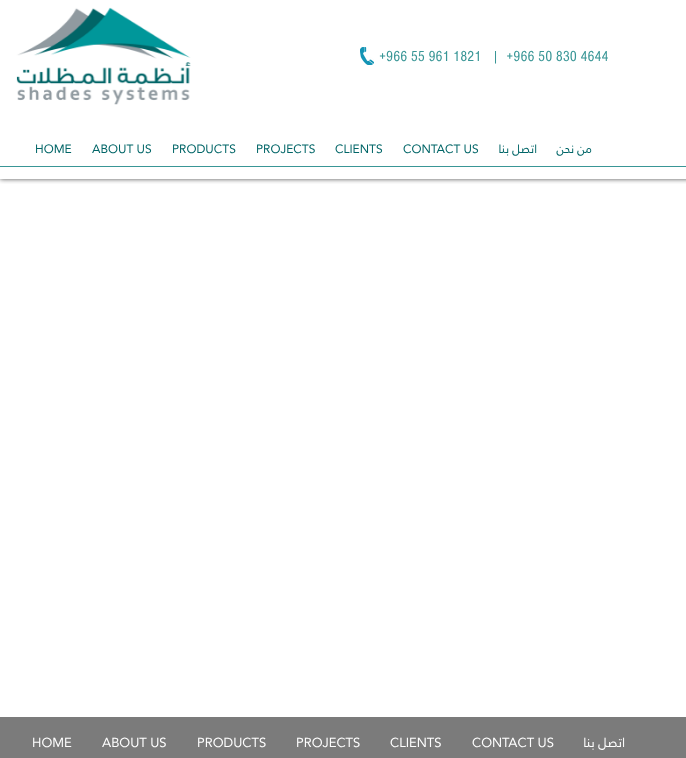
<svg xmlns="http://www.w3.org/2000/svg" width="686" height="758" viewBox="0 0 686 758">
  <style>
    .t1 { font: 15px 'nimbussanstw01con'; fill: #399696; }
    .t2 { font: 12px 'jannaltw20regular'; fill: #016567; }
    .t3 { font: 12px 'jannaltw20regular'; direction: rtl; fill: #016567; }
    .t4 { font: 13px 'jannaltw20regular'; fill: #fff; }
    .t5 { font: 13px 'jannaltw20regular'; direction: rtl; fill: #fff; }
  </style>
  <defs>
    <clipPath id="clip1"><rect x="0" y="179" width="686" height="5"/></clipPath>
  </defs>
  <rect width="100%" height="100%" fill="#fff"/>
  <g clip-path="url(#clip1)">
    <rect x="0" y="0" width="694" height="179" fill="#000000b3" filter="blur(2.5px)"/>
  </g>
  <image x="16" y="7" width="175" height="98" href="images/1.png"/>
  <image x="360" y="47" width="14" height="18" href="images/2.png"/>
  <text x="379" y="61" class="t1" xml:space="preserve">+966 55 961 1821   |  +966 50 830 4644</text>
  <text x="35" y="153" class="t2">HOME</text>
  <text x="92" y="153" class="t2">ABOUT US</text>
  <text x="172" y="153" class="t2">PRODUCTS</text>
  <text x="256" y="153" class="t2">PROJECTS</text>
  <text x="335" y="153" class="t2">CLIENTS</text>
  <text x="403" y="153" class="t2">CONTACT US</text>
  <text x="537" y="153" class="t3">اتصل بنا</text>
  <text x="592" y="153" class="t3">من نحن</text>
  <rect x="0" y="166" width="686" height="1" fill="#399696"/>
  <rect x="0" y="717" width="686" height="41" fill="#7b7b7b"/>
  <text x="32" y="747" class="t4">HOME</text>
  <text x="102" y="747" class="t4">ABOUT US</text>
  <text x="197" y="747" class="t4">PRODUCTS</text>
  <text x="296" y="747" class="t4">PROJECTS</text>
  <text x="390" y="747" class="t4">CLIENTS</text>
  <text x="472" y="747" class="t4">CONTACT US</text>
  <text x="625" y="747" class="t5">اتصل بنا</text>
</svg>
